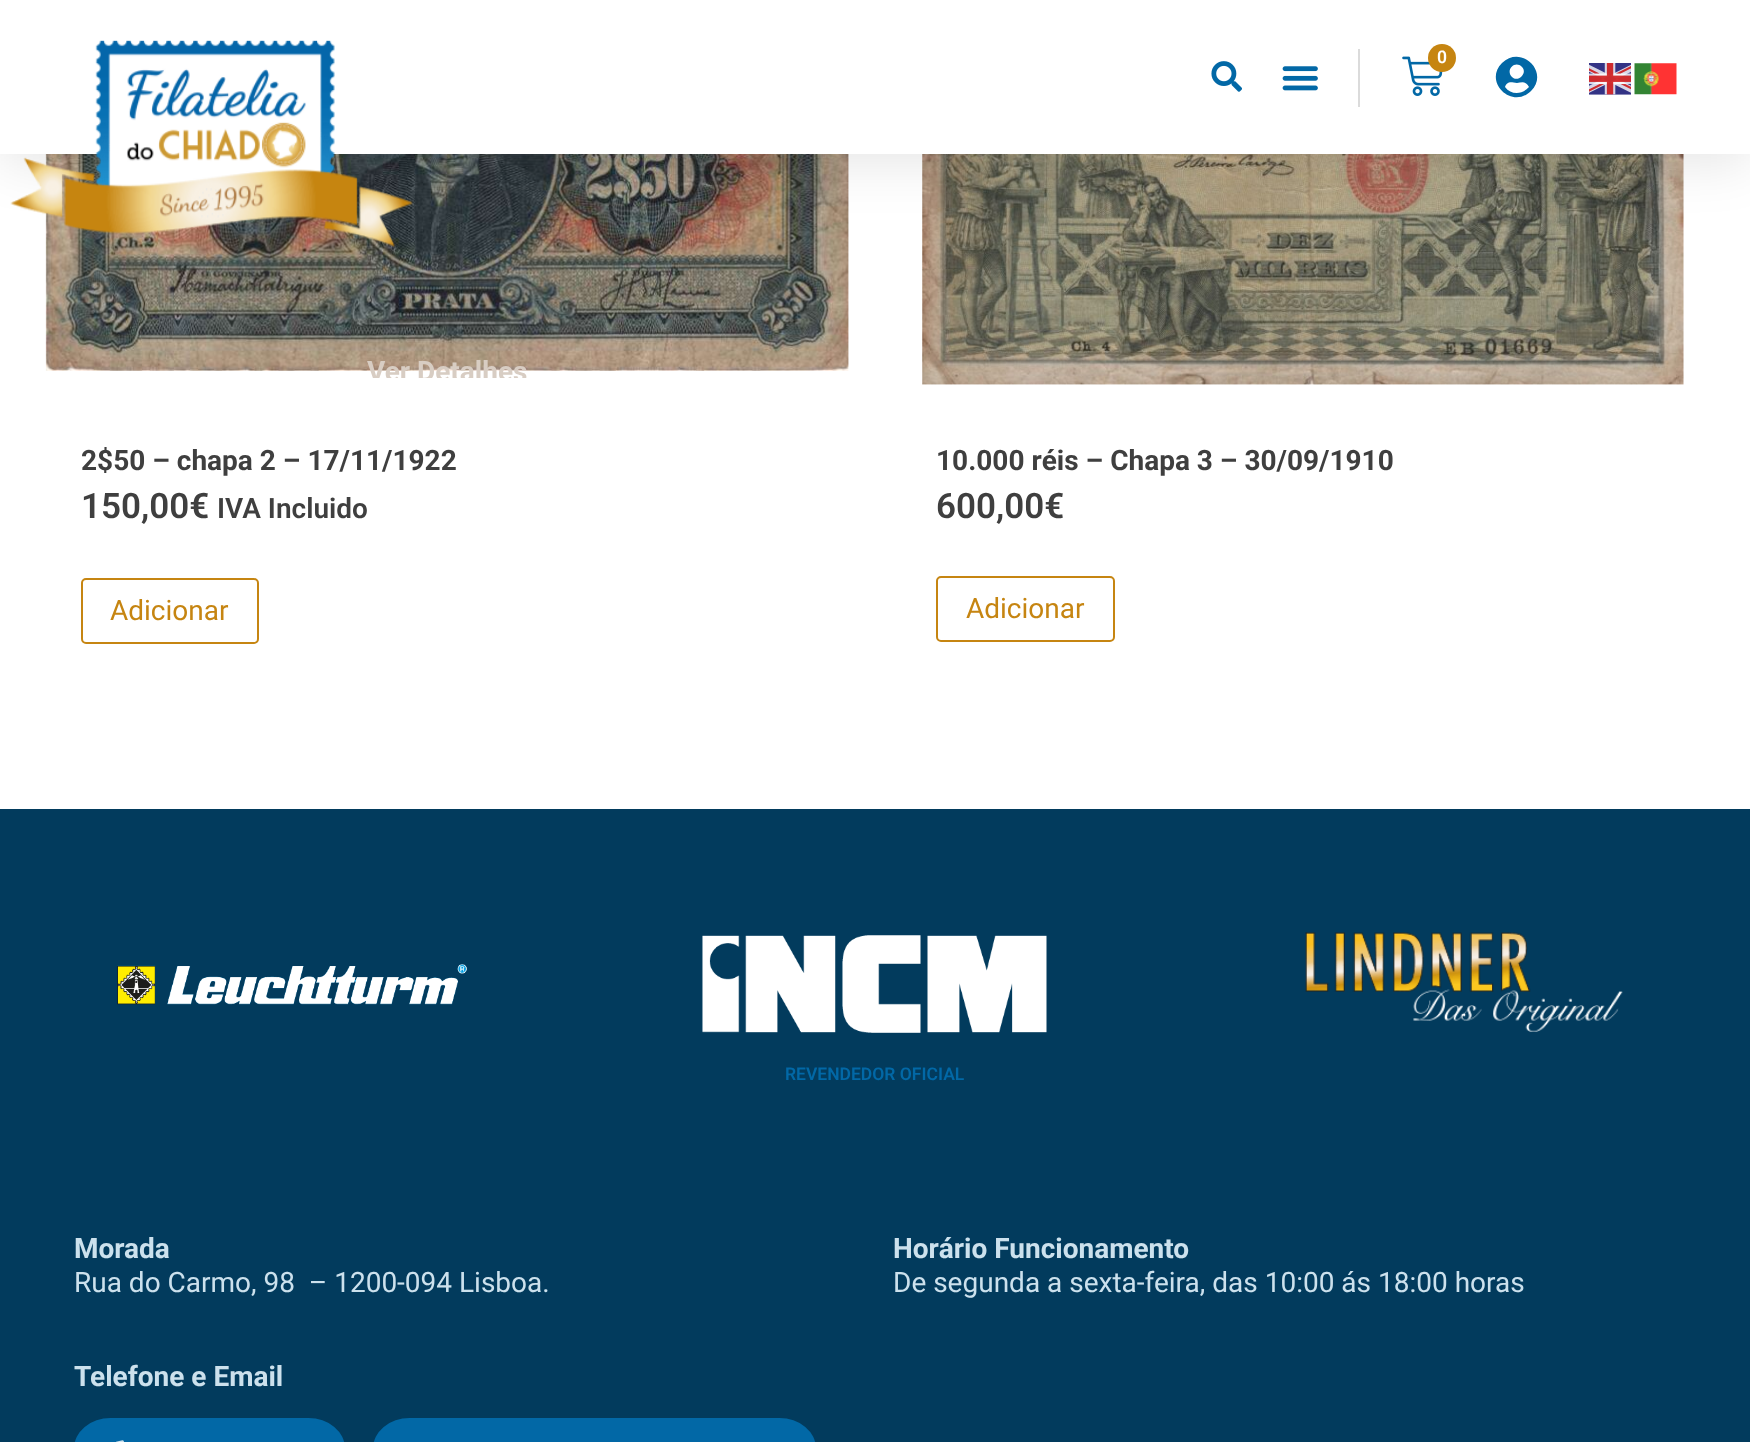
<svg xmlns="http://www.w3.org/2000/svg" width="1750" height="1442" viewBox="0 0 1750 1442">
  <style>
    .t1 { font: 600 17.5px Roboto; fill: #fff; }
    .t2 { font: bold 28px Roboto; fill: #d8cdc3; }
    .t3 { font: bold 28px Roboto; fill: #3f3f3f; }
    .t4 { font: 600 35px Roboto; fill: #3f3f3f; }
    .t5 { font: 600 28px Roboto; fill: #3f3f3f; }
    .t6 { font: 28px Roboto; fill: #c68511; }
    .t7 { font: 600 17.5px Roboto; fill: #0268a6; }
    .t8 { font: bold 28px Roboto; fill: #cce1ed; }
    .t9 { font: 28px Roboto; fill: #cce1ed; }
  </style>
  <defs>
    <clipPath id="clip1"><rect x="46" y="-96" width="803" height="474" rx="5"/></clipPath>
  </defs>
  <rect width="100%" height="100%" fill="#fff"/>
  <image x="45" y="154" width="804" height="217" href="images/7.png"/>
  <image x="922" y="154" width="762" height="231" href="images/8.png"/>
  <rect x="0" y="9" width="1750" height="154" fill="#0000001a" filter="blur(26px)"/>
  <rect x="0" y="0" width="1750" height="154" fill="#fff"/>
  <image x="10" y="40" width="403" height="207" href="images/1.png"/>
  <image x="1211" y="61" width="31" height="31" href="images/2.png"/>
  <rect x="1358" y="49" width="2" height="58" fill="#dbdbdb"/>
  <image x="1282" y="66" width="36" height="25" href="images/3.png"/>
  <image x="1402" y="56" width="41" height="40" href="images/4.png"/>
  <circle cx="1442" cy="58" r="14" fill="#c68511"/>
  <text x="1437" y="63" class="t1">0</text>
  <path d="M1502 63C1521 44 1550 72 1531 91C1512 110 1483 82 1502 63ZM1522 67C1515 60 1505 70 1512 77C1518 83 1528 73 1522 67ZM1505 87C1511 95 1522 95 1529 87C1525 80 1521 83 1517 83C1512 83 1508 80 1505 87Z" fill="#0268a6"/>
  <image x="1589" y="63" width="42" height="32" href="images/5.png"/>
  <image x="1634" y="63" width="43" height="32" href="images/6.png"/>
  <g clip-path="url(#clip1)">
    <text x="367" y="381" class="t2">Ver Detalhes</text>
  </g>
  <text x="81" y="470" class="t3">2$50 – chapa 2 – 17/11/1922</text>
  <text x="81" y="518" class="t4">150,00€</text>
  <text x="217" y="518" class="t5">IVA Incluido</text>
  <rect x="82" y="579" width="176" height="64" rx="4" fill="none" stroke="#c68511" stroke-width="2"/>
  <text x="110" y="620" class="t6">Adicionar</text>
  <text x="936" y="470" class="t3">10.000 réis – Chapa 3 – 30/09/1910</text>
  <text x="936" y="518" class="t4">600,00€</text>
  <rect x="937" y="577" width="177" height="64" rx="4" fill="none" stroke="#c68511" stroke-width="2"/>
  <text x="966" y="618" class="t6">Adicionar</text>
  <rect x="0" y="809" width="1750" height="633" fill="#023b5d"/>
  <image x="117" y="964" width="351" height="41" href="images/9.png"/>
  <image x="1305" y="932" width="318" height="100" href="images/10.png"/>
  <image x="702" y="935" width="345" height="98" href="images/11.png"/>
  <text x="785" y="1080" class="t7">REVENDEDOR OFICIAL</text>
  <text x="74" y="1258" class="t8">Morada</text>
  <text x="74" y="1292" class="t9" xml:space="preserve">Rua do Carmo, 98  – 1200-094 Lisboa.</text>
  <text x="893" y="1258" class="t8">Horário Funcionamento</text>
  <text x="893" y="1292" class="t9">De segunda a sexta-feira, das 10:00 ás 18:00 horas</text>
  <text x="74" y="1386" class="t8">Telefone e Email</text>
  <rect x="74" y="1418" width="271" height="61" rx="36.5" fill="#0268a6"/>
  <image x="116" y="1440" width="8" height="2" href="images/12.png"/>
  <rect x="373" y="1418" width="443" height="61" rx="36.5" fill="#0268a6"/>
</svg>
